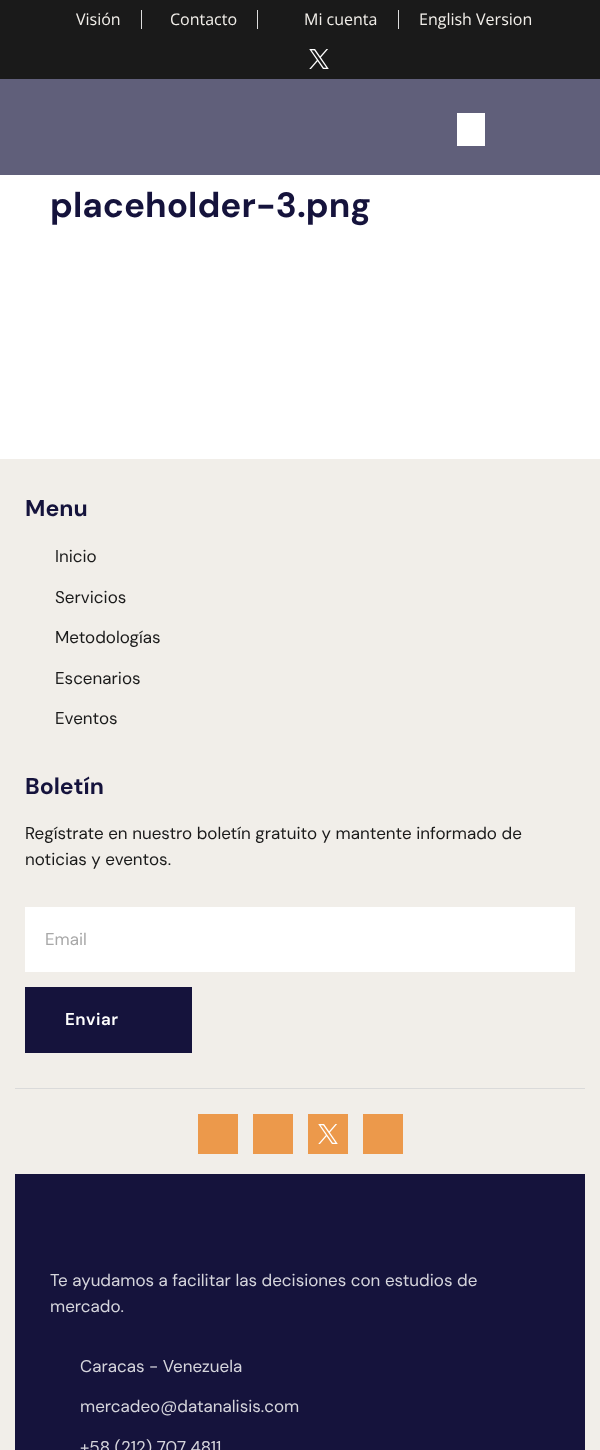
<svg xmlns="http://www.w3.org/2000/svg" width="600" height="1450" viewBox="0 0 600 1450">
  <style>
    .t1 { font: 16px Open Sans; fill: #f1eee9; }
    .t2 { font: bold 35px DM Sans; fill: #15133c; }
    .t3 { font: bold 23px DM Sans; fill: #15133c; }
    .t4 { font: 17px DM Sans; fill: #1a1a1a; }
    .t5 { font: 17px DM Sans; fill: #a8a8a8; }
    .t6 { font: 600 17px DM Sans; letter-spacing: 0.5px; fill: #fff; }
    .t7 { font: 17px DM Sans; fill: #d5d5dc; }
  </style>
  <rect width="100%" height="100%" fill="#fff"/>
  <rect x="0" y="0" width="600" height="79" fill="#1a1a1a"/>
  <text x="76" y="25" class="t1">Visión</text>
  <rect x="141" y="10" width="1" height="19" fill="#ddd"/>
  <text x="170" y="25" class="t1">Contacto</text>
  <rect x="257" y="10" width="1" height="19" fill="#ddd"/>
  <text x="304" y="25" class="t1">Mi cuenta</text>
  <rect x="398" y="10" width="1" height="19" fill="#ddd"/>
  <text x="419" y="25" class="t1">English Version</text>
  <image x="309" y="49" width="20" height="20" href="images/1.png"/>
  <rect x="0" y="79" width="600" height="96" fill="#605f7a"/>
  <rect x="457" y="113" width="28" height="33" fill="#fff"/>
  <text x="50" y="217" class="t2">placeholder-3.png</text>
  <rect x="0" y="459" width="600" height="991" fill="#f1eee9"/>
  <text x="25" y="516" class="t3">Menu</text>
  <text x="55" y="562" class="t4">Inicio</text>
  <text x="55" y="603" class="t4">Servicios</text>
  <text x="55" y="643" class="t4">Metodologías</text>
  <text x="55" y="684" class="t4">Escenarios</text>
  <text x="55" y="724" class="t4">Eventos</text>
  <text x="25" y="794" class="t3">Boletín</text>
  <text x="25" y="839" class="t4">Regístrate en nuestro boletín gratuito y mantente informado de</text>
  <text x="25" y="865" class="t4">noticias y eventos.</text>
  <rect x="25" y="907" width="550" height="65" fill="#fff"/>
  <text x="45" y="945" class="t5">Email</text>
  <rect x="25" y="987" width="167" height="66" fill="#15133c"/>
  <text x="65" y="1025" class="t6">Enviar</text>
  <rect x="15" y="1088" width="570" height="1" fill="#dadada"/>
  <rect x="198" y="1114" width="40" height="40" fill="#ec994b"/>
  <rect x="253" y="1114" width="40" height="40" fill="#ec994b"/>
  <rect x="308" y="1114" width="40" height="40" fill="#ec994b"/>
  <image x="318" y="1124" width="20" height="20" href="images/2.png"/>
  <rect x="363" y="1114" width="40" height="40" fill="#ec994b"/>
  <rect x="15" y="1174" width="570" height="276" fill="#15133c"/>
  <text x="50" y="1286" class="t7">Te ayudamos a facilitar las decisiones con estudios de</text>
  <text x="50" y="1312" class="t7">mercado.</text>
  <text x="80" y="1372" class="t7">Caracas - Venezuela</text>
  <text x="80" y="1412" class="t7">mercadeo@datanalisis.com</text>
  <text x="80" y="1453" class="t7">+58 (212) 707 4811</text>
</svg>
